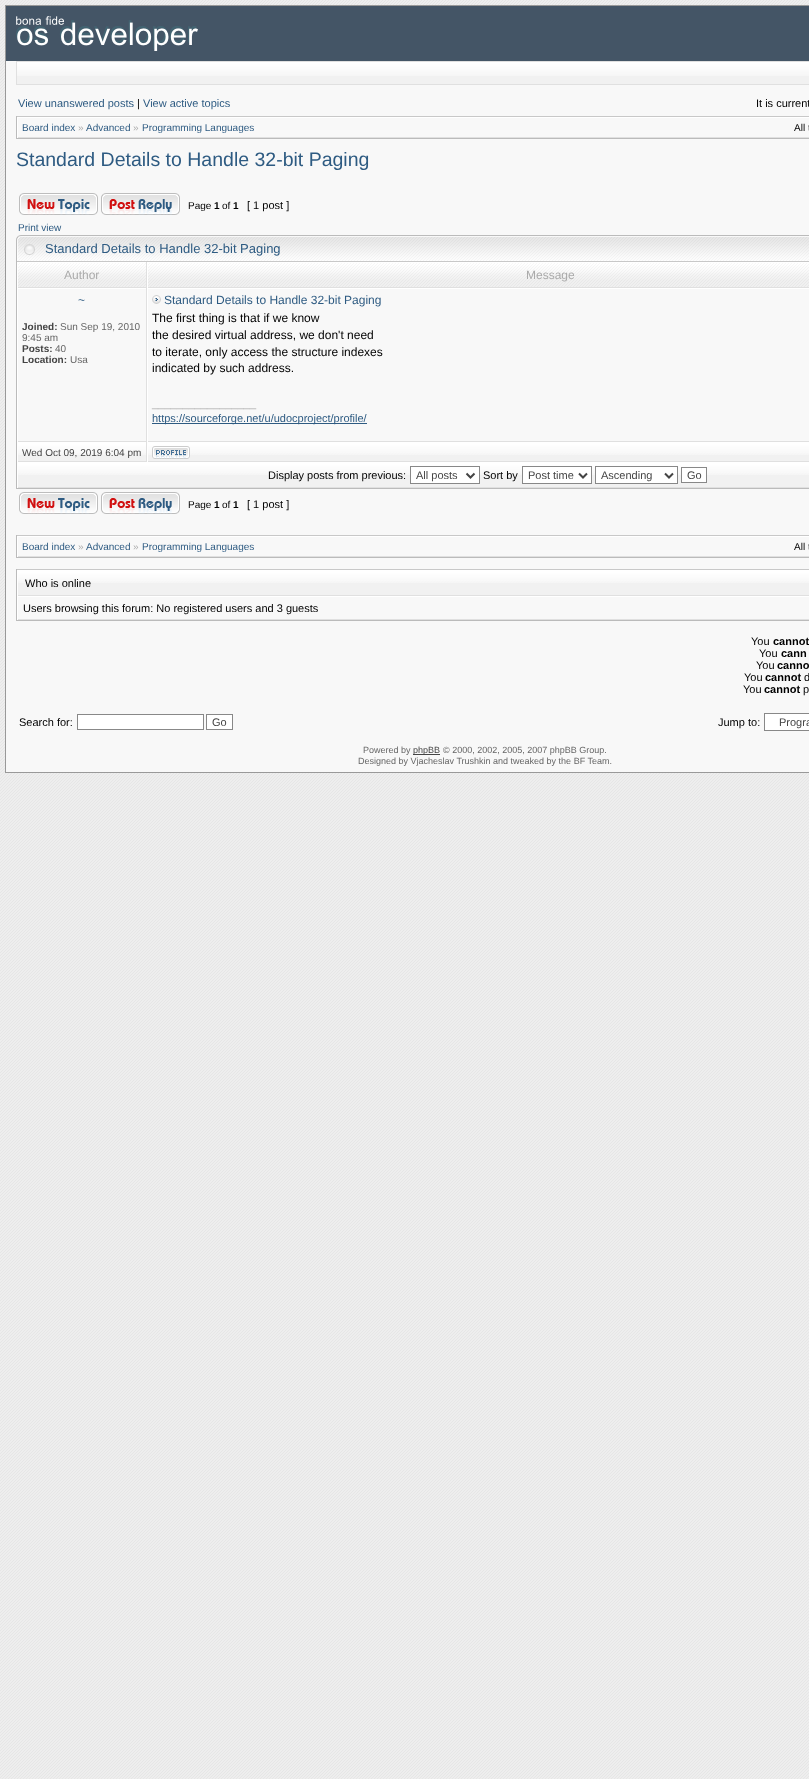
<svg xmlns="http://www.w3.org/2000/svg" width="809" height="1779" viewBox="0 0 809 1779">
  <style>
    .t1 { font: 11px Liberation Sans; fill: #2e5b82; }
    .t2 { font: 11px Liberation Sans; fill: #000; }
    .t3 { font: 10px Liberation Sans; fill: #2e5b82; }
    .t4 { font: 10px Liberation Sans; fill: #aaa; }
    .t5 { font: 10px Liberation Sans; fill: #000; }
    .t6 { font: 19.5px Liberation Sans; fill: #2e5b82; }
    .t7 { font: bold 10px Liberation Sans; fill: #000; }
    .t8 { font: 13px Liberation Sans; fill: #2e5b82; }
    .t9 { font: 12px Liberation Sans; fill: #aaa; }
    .t10 { font: 12px Liberation Sans; fill: #2e5b82; }
    .t11 { font: bold 10px Liberation Sans; fill: #444; }
    .t12 { font: 10px Liberation Sans; fill: #666; }
    .t13 { font: 12px Liberation Sans; fill: #000; }
    .t14 { font: 11px Liberation Sans; fill: #aaa; }
    .t15 { font: 10px Liberation Sans; fill: #444; }
    .t16 { font: 11px Liberation Sans; fill: #444; }
    .t17 { font: bold 11px Liberation Sans; fill: #000; }
    .t18 { font: 9px Liberation Sans; fill: #666; }
    .t19 { font: 9px Liberation Sans; fill: #444; }
  </style>
  <rect width="100%" height="100%" fill="#fff"/>
  <image x="0" y="0" width="809" height="1779" href="images/1.png"/>
  <rect x="6" y="61" width="803" height="711" fill="#f8f8f8"/>
  <rect x="5.5" y="5.5" width="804" height="767" fill="none" stroke="#999"/>
  <rect x="6" y="6" width="803" height="55" fill="#456"/>
  <image x="16" y="16" width="182" height="35" href="images/2.png"/>
  <rect x="17" y="76" width="792" height="8" fill="#f1f1f1"/>
  <image x="17" y="62" width="792" height="14" href="images/3.png"/>
  <rect x="16.5" y="61.5" width="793" height="23" fill="none" stroke="#e0e0e0"/>
  <text x="18" y="107" class="t1">View unanswered posts</text>
  <text x="137" y="107" class="t2">|</text>
  <text x="143" y="107" class="t1">View active topics</text>
  <text x="756" y="107" class="t2">It is current</text>
  <rect x="16" y="116" width="793" height="1" fill="#c8c8c8"/>
  <rect x="16" y="138" width="793" height="1" fill="#bbb"/>
  <rect x="16" y="116" width="1" height="23" fill="#bbb"/>
  <rect x="17" y="117" width="792" height="1" fill="#fff"/>
  <rect x="17" y="137" width="792" height="1" fill="#e0e0e0"/>
  <rect x="17" y="117" width="1" height="21" fill="#fff"/>
  <text x="22" y="131" class="t3">Board index</text>
  <text x="78" y="131" class="t4">»</text>
  <text x="86" y="131" class="t3">Advanced</text>
  <text x="133" y="131" class="t4">»</text>
  <text x="142" y="131" class="t3">Programming Languages</text>
  <text x="794" y="131" class="t5">All t</text>
  <text x="16" y="166" class="t6">Standard Details to Handle 32-bit Paging</text>
  <image x="19" y="193" width="79" height="22" href="images/4.png"/>
  <image x="101" y="193" width="79" height="22" href="images/5.png"/>
  <text x="188" y="209" class="t5">Page</text>
  <text x="214" y="209" class="t7">1</text>
  <text x="222" y="209" class="t5">of</text>
  <text x="233" y="209" class="t7">1</text>
  <text x="247" y="209" class="t2">[ 1 post ]</text>
  <text x="18" y="231" class="t3">Print view</text>
  <image x="16" y="235" width="793" height="26" href="images/6.png"/>
  <image x="16" y="235" width="19" height="26" href="images/7.png"/>
  <text x="45" y="253" class="t8">Standard Details to Handle 32-bit Paging</text>
  <rect x="16" y="261" width="793" height="1" fill="#c8c8c8"/>
  <rect x="16" y="488" width="793" height="1" fill="#bbb"/>
  <rect x="16" y="261" width="1" height="228" fill="#bbb"/>
  <rect x="18" y="262" width="128" height="1" fill="#fff"/>
  <image x="18" y="263" width="128" height="24" href="images/8.png"/>
  <rect x="146" y="262" width="1" height="26" fill="#e0e0e0"/>
  <rect x="17" y="287" width="792" height="1" fill="#e0e0e0"/>
  <rect x="17" y="262" width="1" height="26" fill="#fff"/>
  <text x="64" y="279" class="t9">Author</text>
  <rect x="148" y="262" width="661" height="1" fill="#fff"/>
  <image x="148" y="263" width="661" height="24" href="images/9.png"/>
  <rect x="147" y="262" width="1" height="26" fill="#fff"/>
  <text x="526" y="279" class="t9">Message</text>
  <rect x="17" y="288" width="792" height="1" fill="#fff"/>
  <rect x="146" y="288" width="1" height="154" fill="#e0e0e0"/>
  <rect x="17" y="441" width="792" height="1" fill="#e0e0e0"/>
  <rect x="17" y="288" width="1" height="154" fill="#fff"/>
  <text x="78" y="304" class="t10">~</text>
  <text x="22" y="330" class="t11">Joined:</text>
  <text x="60" y="330" class="t12">Sun Sep 19, 2010</text>
  <text x="22" y="341" class="t12">9:45 am</text>
  <text x="22" y="352" class="t11">Posts:</text>
  <text x="55" y="352" class="t12">40</text>
  <text x="22" y="363" class="t11">Location:</text>
  <text x="70" y="363" class="t12">Usa</text>
  <rect x="147" y="288" width="1" height="154" fill="#fff"/>
  <image x="152" y="295" width="9" height="9" href="images/10.png"/>
  <text x="164" y="304" class="t10">Standard Details to Handle 32-bit Paging</text>
  <text x="152" y="322" class="t13">The first thing is that if we know</text>
  <text x="152" y="339" class="t13">the desired virtual address, we don't need</text>
  <text x="152" y="356" class="t13">to iterate, only access the structure indexes</text>
  <text x="152" y="372" class="t13">indicated by such address.</text>
  <text x="152" y="407" class="t14">_________________</text>
  <rect x="152" y="423" width="215" height="1" fill="#2e5b82"/>
  <text x="152" y="422" class="t1">https://sourceforge.net/u/udocproject/profile/</text>
  <rect x="18" y="455" width="128" height="6" fill="#f1f1f1"/>
  <image x="18" y="443" width="128" height="12" href="images/11.png"/>
  <rect x="17" y="442" width="792" height="1" fill="#fff"/>
  <rect x="146" y="442" width="1" height="20" fill="#e0e0e0"/>
  <rect x="17" y="461" width="792" height="1" fill="#e0e0e0"/>
  <rect x="17" y="442" width="1" height="20" fill="#fff"/>
  <text x="22" y="456" class="t15">Wed Oct 09, 2019 6:04 pm</text>
  <rect x="148" y="455" width="661" height="6" fill="#f1f1f1"/>
  <image x="148" y="443" width="661" height="12" href="images/12.png"/>
  <rect x="147" y="442" width="1" height="20" fill="#fff"/>
  <image x="152" y="446" width="38" height="13" href="images/13.png"/>
  <rect x="18" y="475" width="791" height="12" fill="#f1f1f1"/>
  <image x="18" y="463" width="791" height="12" href="images/14.png"/>
  <rect x="17" y="462" width="792" height="1" fill="#fff"/>
  <rect x="17" y="487" width="792" height="1" fill="#e0e0e0"/>
  <rect x="17" y="462" width="1" height="26" fill="#fff"/>
  <text x="268" y="479" class="t2">Display posts from previous:</text>
  <rect x="410.5" y="466.5" width="69" height="17" fill="#fff" stroke="#888"/>
  <path d="M466.5 473.5L470.5 477.5L474.5 473.5" fill="none" stroke="#444" stroke-width="2"/>
  <text x="416" y="479" class="t16">All posts</text>
  <text x="483" y="479" class="t2">Sort by</text>
  <rect x="522.5" y="466.5" width="69" height="17" fill="#fff" stroke="#888"/>
  <path d="M579 473.5L583 477.5L587 473.5" fill="none" stroke="#444" stroke-width="2"/>
  <text x="528" y="479" class="t16">Post time</text>
  <rect x="595.5" y="466.5" width="82" height="17" fill="#fff" stroke="#888"/>
  <path d="M665 473.5L669 477.5L673 473.5" fill="none" stroke="#444" stroke-width="2"/>
  <text x="601" y="479" class="t16">Ascending</text>
  <rect x="681.5" y="467.5" width="25" height="15" fill="#fff" stroke="#888"/>
  <text x="687" y="479" class="t16">Go</text>
  <image x="19" y="492" width="79" height="22" href="images/4.png"/>
  <image x="101" y="492" width="79" height="22" href="images/5.png"/>
  <text x="188" y="508" class="t5">Page</text>
  <text x="214" y="508" class="t7">1</text>
  <text x="222" y="508" class="t5">of</text>
  <text x="233" y="508" class="t7">1</text>
  <text x="247" y="508" class="t2">[ 1 post ]</text>
  <rect x="16" y="535" width="793" height="1" fill="#c8c8c8"/>
  <rect x="16" y="557" width="793" height="1" fill="#bbb"/>
  <rect x="16" y="535" width="1" height="23" fill="#bbb"/>
  <rect x="17" y="536" width="792" height="1" fill="#fff"/>
  <rect x="17" y="556" width="792" height="1" fill="#e0e0e0"/>
  <rect x="17" y="536" width="1" height="21" fill="#fff"/>
  <text x="22" y="550" class="t3">Board index</text>
  <text x="78" y="550" class="t4">»</text>
  <text x="86" y="550" class="t3">Advanced</text>
  <text x="133" y="550" class="t4">»</text>
  <text x="142" y="550" class="t3">Programming Languages</text>
  <text x="794" y="550" class="t5">All t</text>
  <rect x="16" y="569" width="793" height="1" fill="#c8c8c8"/>
  <rect x="16" y="620" width="793" height="1" fill="#bbb"/>
  <rect x="16" y="569" width="1" height="52" fill="#bbb"/>
  <rect x="18" y="583" width="791" height="12" fill="#f1f1f1"/>
  <image x="18" y="571" width="791" height="12" href="images/14.png"/>
  <rect x="17" y="570" width="792" height="1" fill="#fff"/>
  <rect x="17" y="595" width="792" height="1" fill="#e0e0e0"/>
  <rect x="17" y="570" width="1" height="26" fill="#fff"/>
  <text x="25" y="587" class="t2">Who is online</text>
  <rect x="17" y="596" width="792" height="1" fill="#fff"/>
  <rect x="17" y="619" width="792" height="1" fill="#e0e0e0"/>
  <rect x="17" y="596" width="1" height="24" fill="#fff"/>
  <text x="23" y="612" class="t2">Users browsing this forum: No registered users and 3 guests</text>
  <text x="751" y="645" class="t2">You</text>
  <text x="773" y="645" class="t17">cannot</text>
  <text x="759" y="657" class="t2">You</text>
  <text x="781" y="657" class="t17">cann</text>
  <text x="756" y="669" class="t2">You</text>
  <text x="777" y="669" class="t17">canno</text>
  <text x="744" y="681" class="t2">You</text>
  <text x="765" y="681" class="t17">cannot</text>
  <text x="804" y="681" class="t2">d</text>
  <text x="743" y="693" class="t2">You</text>
  <text x="764" y="693" class="t17">cannot</text>
  <text x="803" y="693" class="t2">p</text>
  <text x="19" y="726" class="t2">Search for:</text>
  <rect x="77.5" y="714.5" width="126" height="15" fill="#fff" stroke="#888"/>
  <rect x="206.5" y="714.5" width="26" height="15" fill="#fff" stroke="#888"/>
  <text x="212" y="726" class="t16">Go</text>
  <text x="718" y="726" class="t2">Jump to:</text>
  <rect x="764.5" y="713.5" width="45" height="17" fill="#fff" stroke="#888"/>
  <text x="779" y="726" class="t16">Progra</text>
  <text x="363" y="753" class="t18">Powered by</text>
  <rect x="413" y="754" width="27" height="1" fill="#444"/>
  <text x="413" y="753" class="t19">phpBB</text>
  <text x="443" y="753" class="t18">© 2000, 2002, 2005, 2007 phpBB Group.</text>
  <text x="358" y="764" class="t18">Designed by Vjacheslav Trushkin and tweaked by the BF Team.</text>
</svg>
